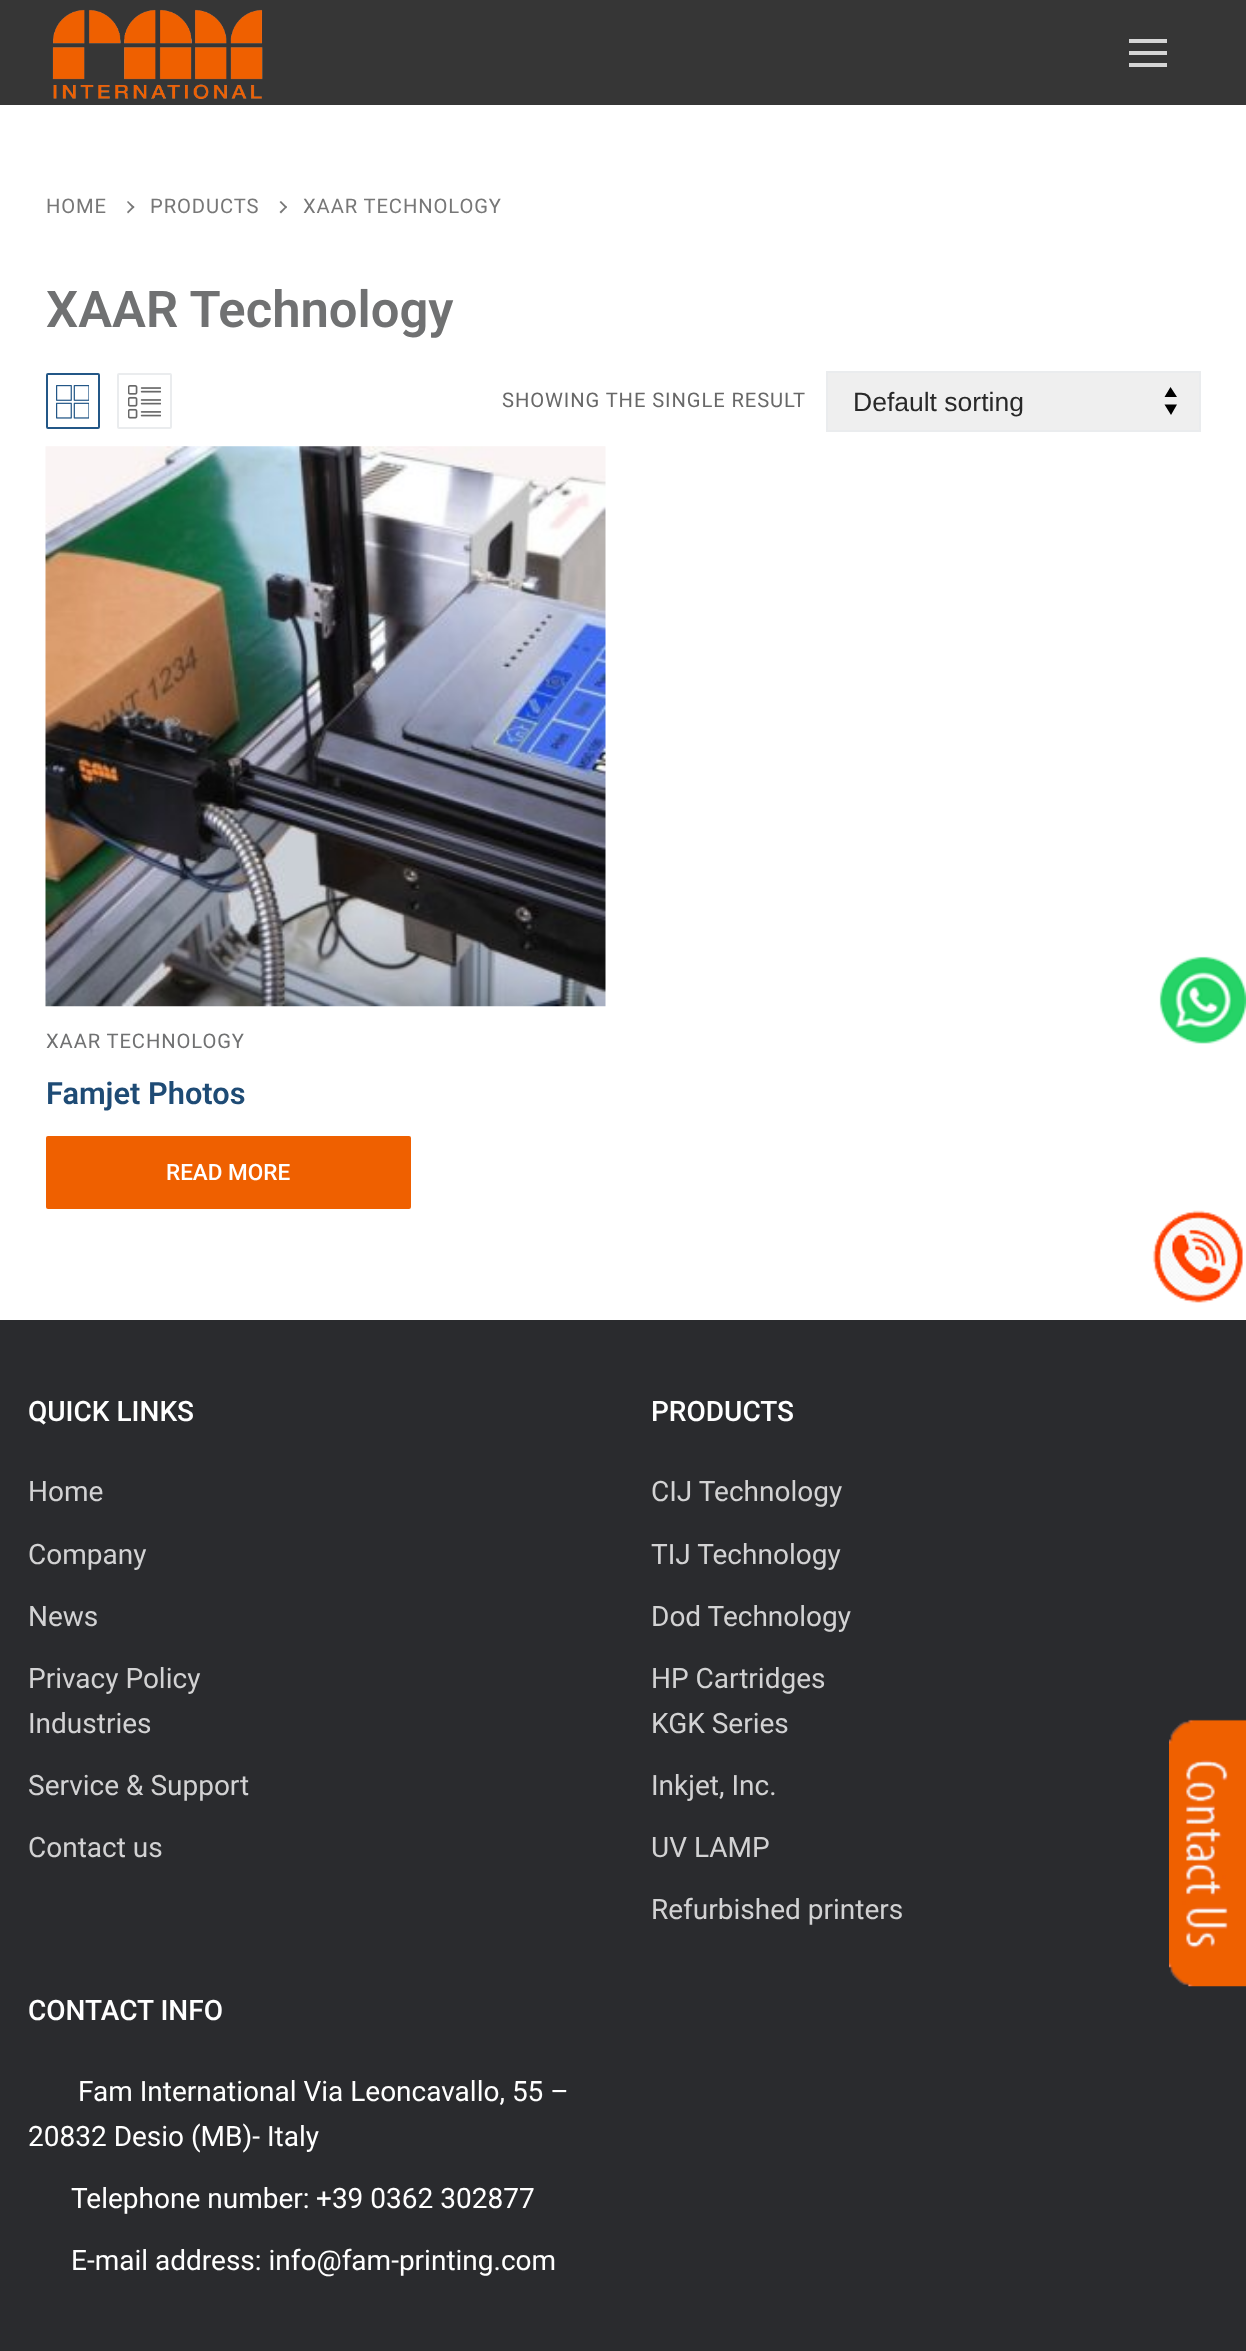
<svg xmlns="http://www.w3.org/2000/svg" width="1246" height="2351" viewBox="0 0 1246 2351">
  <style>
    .t1 { font: 20.2px Roboto; letter-spacing: 0.9px; fill: #777; }
    .t2 { font: 600 50.75px Roboto; fill: #707172; }
    .t3 { font: 20.2px Roboto; letter-spacing: 0.9px; fill: #686868; }
    .t4 { font: 26.5px Liberation Sans; fill: #282828; }
    .t5 { font: 20.2px Roboto; letter-spacing: 0.9px; fill: #707172; }
    .t6 { font: 600 30.75px Roboto; fill: #1e4b75; }
    .t7 { font: 500 22.5px Roboto; fill: #fff; }
    .t8 { font: 500 28px Roboto; fill: #fff; }
    .t9 { font: 28px Roboto; fill: #d2d2d3; }
    .t10 { font: 28px Roboto; fill: #fff; }
  </style>
  <rect width="100%" height="100%" fill="#fff"/>
  <rect x="0" y="0" width="1246" height="105" fill="#363636"/>
  <image x="52" y="9" width="211" height="90" href="images/1.png"/>
  <rect x="1129" y="51" width="38" height="4" fill="#d5d5d5"/>
  <rect x="1129" y="39" width="38" height="4" fill="#d5d5d5"/>
  <rect x="1129" y="63" width="38" height="4" fill="#d5d5d5"/>
  <text x="46" y="213" class="t1">HOME</text>
  <path d="M134.5 207L128 213.5L127 212L133 206Z" fill="#777"/>
  <path d="M134.5 207L133 208.5L127 202L128 201Z" fill="#777"/>
  <text x="150" y="213" class="t1">PRODUCTS</text>
  <path d="M287 207L281 213.5L279.5 212L286 206Z" fill="#777"/>
  <path d="M287 207L286 208.5L279.5 202L281 201Z" fill="#777"/>
  <text x="303" y="213" class="t1">XAAR TECHNOLOGY</text>
  <text x="46" y="327" class="t2">XAAR Technology</text>
  <rect x="47" y="374" width="52" height="54" rx="1" fill="none" stroke="#235787" stroke-width="2"/>
  <image x="56" y="385" width="33" height="34" href="images/2.png"/>
  <rect x="118" y="374" width="53" height="54" rx="1" fill="none" stroke="#eaecee" stroke-width="2"/>
  <image x="128" y="385" width="33" height="34" href="images/3.png"/>
  <text x="502" y="407" class="t3">SHOWING THE SINGLE RESULT</text>
  <rect x="828" y="373" width="371" height="57" fill="#efefef"/>
  <path d="M1170.5 387L1164.5 397H1177ZM1171 415L1177 404.5H1164.5Z" fill="#000"/>
  <rect x="827" y="372" width="373" height="59" fill="none" stroke="#eaecee" stroke-width="2"/>
  <text x="853" y="411" class="t4">Default sorting</text>
  <image x="45" y="446" width="561" height="561" href="images/4.png"/>
  <text x="46" y="1048" class="t5">XAAR TECHNOLOGY</text>
  <text x="46" y="1104" class="t6">Famjet Photos</text>
  <rect x="46" y="1136" width="365" height="73" rx="2" fill="#ef6000"/>
  <text x="166" y="1180" class="t7">READ MORE</text>
  <rect x="0" y="1320" width="1246" height="1031" fill="#2a2b2e"/>
  <text x="28" y="1421" class="t8">QUICK LINKS</text>
  <text x="28" y="1501" class="t9">Home</text>
  <text x="28" y="1564" class="t9">Company</text>
  <text x="28" y="1626" class="t9">News</text>
  <text x="28" y="1688" class="t9">Privacy Policy</text>
  <text x="28" y="1733" class="t9">Industries</text>
  <text x="28" y="1795" class="t9">Service &amp; Support</text>
  <text x="28" y="1857" class="t9">Contact us</text>
  <text x="651" y="1421" class="t8">PRODUCTS</text>
  <text x="651" y="1501" class="t9">CIJ Technology</text>
  <text x="651" y="1564" class="t9">TIJ Technology</text>
  <text x="651" y="1626" class="t9">Dod Technology</text>
  <text x="651" y="1688" class="t9">HP Cartridges</text>
  <text x="651" y="1733" class="t9">KGK Series</text>
  <text x="651" y="1795" class="t9">Inkjet, Inc.</text>
  <text x="651" y="1857" class="t9">UV LAMP</text>
  <text x="651" y="1919" class="t9">Refurbished printers</text>
  <text x="28" y="2020" class="t8">CONTACT INFO</text>
  <text x="78" y="2101" class="t10">Fam International Via Leoncavallo, 55 –</text>
  <text x="28" y="2146" class="t10">20832 Desio (MB)- Italy</text>
  <text x="71" y="2208" class="t10">Telephone number:</text>
  <text x="316" y="2208" class="t10">+39 0362 302877</text>
  <text x="71" y="2270" class="t10">E-mail address: info@fam-printing.com</text>
  <image x="1159" y="956" width="87" height="88" href="images/5.png"/>
  <image x="1152" y="1210" width="91" height="93" href="images/6.png"/>
  <image x="1169" y="1719" width="77" height="268" href="images/7.png"/>
</svg>
